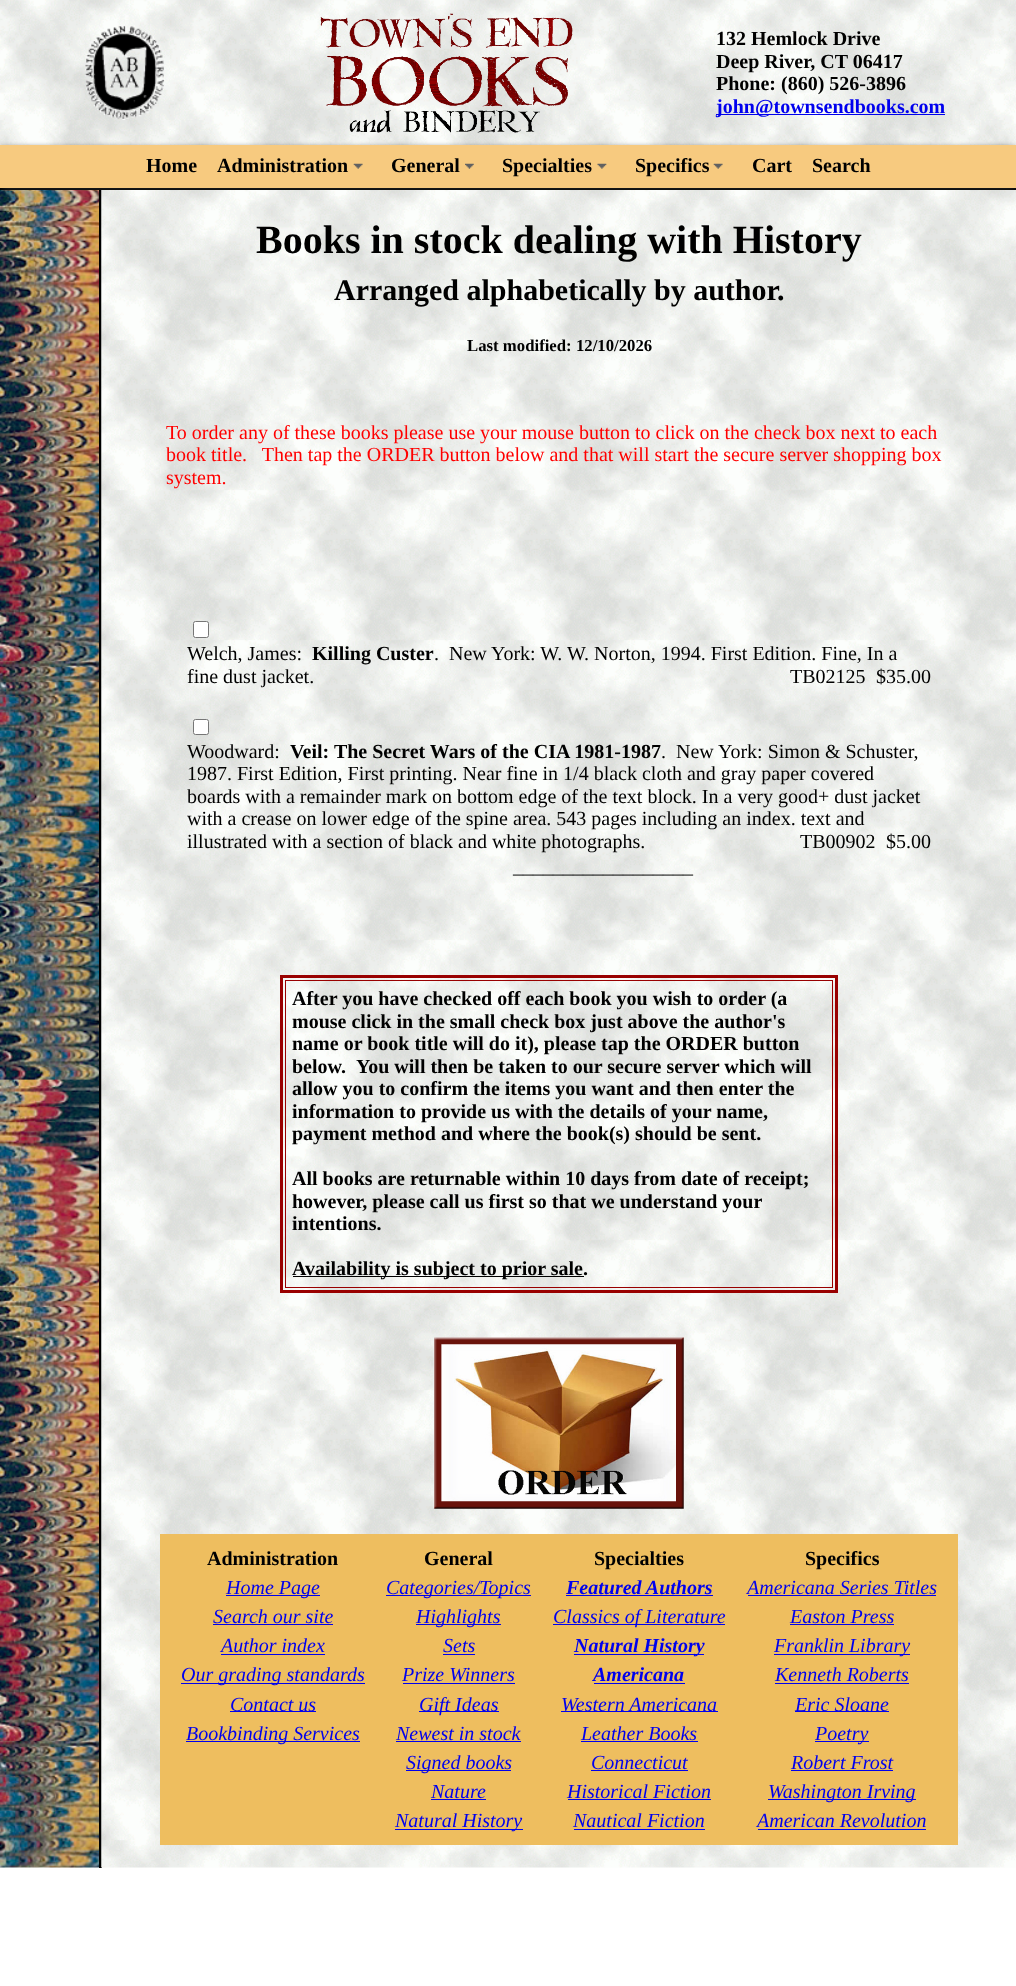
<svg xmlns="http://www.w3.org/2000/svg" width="1016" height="1986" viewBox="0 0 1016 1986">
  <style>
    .t1 { font: bold 20px Liberation Serif; fill: #000; }
    .t2 { font: bold 20px Liberation Serif; fill: #00e; }
    .t3 { font: bold 40px Liberation Serif; fill: #000; }
    .t4 { font: bold 30px Liberation Serif; fill: #000; }
    .t5 { font: bold 16.75px Liberation Serif; fill: #000; }
    .t6 { font: 20px Liberation Serif; fill: #f00; }
    .t7 { font: 20px Liberation Serif; fill: #000; }
    .t8 { font: italic 20px Liberation Serif; fill: #00e; }
    .t9 { font: italic bold 20px Liberation Serif; fill: #00e; }
  </style>
  <rect width="100%" height="100%" fill="#fff"/>
  <image x="0" y="0" width="1016" height="145" href="images/1.png"/>
  <rect x="0" y="188" width="1016" height="2" fill="#000"/>
  <image x="85" y="25" width="80" height="95" href="images/2.png"/>
  <image x="320" y="13" width="253" height="120" href="images/3.png"/>
  <text x="716" y="45" class="t1">132 Hemlock Drive</text>
  <text x="716" y="68" class="t1">Deep River, CT 06417</text>
  <text x="716" y="90" class="t1">Phone: (860) 526-3896</text>
  <rect x="716" y="114" width="229" height="1" fill="#00e"/>
  <text x="716" y="113" class="t2">john@townsendbooks.com</text>
  <rect x="3" y="148" width="1013" height="40" fill="#333" filter="blur(3px)"/>
  <rect x="0" y="145" width="1016" height="43" fill="#f7ca7f"/>
  <text x="146" y="172" class="t1">Home</text>
  <image x="353" y="163" width="10" height="6" href="images/4.png"/>
  <text x="217" y="172" class="t1">Administration</text>
  <image x="465" y="163" width="9" height="6" href="images/5.png"/>
  <text x="391" y="172" class="t1">General</text>
  <image x="597" y="163" width="10" height="6" href="images/6.png"/>
  <text x="502" y="172" class="t1">Specialties</text>
  <image x="713" y="163" width="10" height="6" href="images/4.png"/>
  <text x="635" y="172" class="t1">Specifics</text>
  <text x="752" y="172" class="t1">Cart</text>
  <text x="812" y="172" class="t1">Search</text>
  <image x="0" y="190" width="99" height="1678" href="images/7.png"/>
  <rect x="99" y="190" width="3" height="1678" fill="#000"/>
  <image x="101" y="190" width="915" height="1678" href="images/8.png"/>
  <text x="256" y="253" class="t3">Books in stock dealing with History</text>
  <text x="334" y="300" class="t4">Arranged alphabetically by author.</text>
  <text x="467" y="351" class="t5">Last modified: 12/10/2026</text>
  <text x="166" y="439" class="t6">To order any of these books please use your mouse button to click on the check box next to each</text>
  <text x="166" y="461" class="t6" xml:space="preserve">book title.   Then tap the ORDER button below and that will start the secure server shopping box</text>
  <text x="166" y="484" class="t6">system.</text>
  <rect x="193.5" y="621.5" width="15" height="16" rx="2" fill="#fff" stroke="#767676"/>
  <text x="187" y="660" class="t7">Welch, James:</text>
  <text x="312" y="660" class="t1">Killing Custer</text>
  <text x="434" y="660" class="t7" xml:space="preserve">.  New York: W. W. Norton, 1994. First Edition. Fine, In a</text>
  <text x="187" y="683" class="t7">fine dust jacket.</text>
  <text x="790" y="683" class="t7">TB02125</text>
  <text x="876" y="683" class="t7">$35.00</text>
  <rect x="193.5" y="719.5" width="15" height="15" rx="2" fill="#fff" stroke="#767676"/>
  <text x="187" y="758" class="t7">Woodward:</text>
  <text x="290" y="758" class="t1">Veil: The Secret Wars of the CIA 1981-1987</text>
  <text x="661" y="758" class="t7" xml:space="preserve">.  New York: Simon &amp; Schuster,</text>
  <text x="187" y="780" class="t7">1987. First Edition, First printing. Near fine in 1/4 black cloth and gray paper covered</text>
  <text x="187" y="803" class="t7">boards with a remainder mark on bottom edge of the text block. In a very good+ dust jacket</text>
  <text x="187" y="825" class="t7">with a crease on lower edge of the spine area. 543 pages including an index. text and</text>
  <text x="187" y="848" class="t7">illustrated with a section of black and white photographs.</text>
  <text x="800" y="848" class="t7">TB00902</text>
  <text x="886" y="848" class="t7">$5.00</text>
  <rect x="281.5" y="976.5" width="555" height="315" fill="none" stroke="#900" stroke-width="3"/>
  <rect x="285.5" y="980.5" width="547" height="307" fill="none" stroke="#900"/>
  <text x="292" y="1005" class="t1">After you have checked off each book you wish to order (a</text>
  <text x="292" y="1028" class="t1">mouse click in the small check box just above the author's</text>
  <text x="292" y="1050" class="t1">name or book title will do it), please tap the ORDER button</text>
  <text x="292" y="1073" class="t1">below.</text>
  <text x="356" y="1073" class="t1">You will then be taken to our secure server which will</text>
  <text x="292" y="1095" class="t1">allow you to confirm the items you want and then enter the</text>
  <text x="292" y="1118" class="t1">information to provide us with the details of your name,</text>
  <text x="292" y="1140" class="t1">payment method and where the book(s) should be sent.</text>
  <text x="292" y="1185" class="t1">All books are returnable within 10 days from date of receipt;</text>
  <text x="292" y="1208" class="t1">however, please call us first so that we understand your</text>
  <text x="292" y="1230" class="t1">intentions.</text>
  <rect x="293" y="1276" width="291" height="1" fill="#000"/>
  <text x="292" y="1275" class="t1">Availability is subject to prior sale.</text>
  <image x="433" y="1337" width="251" height="172" href="images/9.png"/>
  <text x="513" y="873" class="t7">__________________</text>
  <rect x="160" y="1534" width="798" height="311" fill="#eebe5f"/>
  <text x="207" y="1565" class="t1">Administration</text>
  <rect x="226" y="1595" width="94" height="1" fill="#00e"/>
  <text x="226" y="1594" class="t8">Home Page</text>
  <text x="213" y="1623" class="t8">Search our site</text>
  <rect x="213" y="1624" width="120" height="1" fill="#00e"/>
  <text x="221" y="1652" class="t8">Author index</text>
  <rect x="221" y="1654" width="104" height="1" fill="#00e"/>
  <rect x="181" y="1683" width="184" height="1" fill="#00e"/>
  <text x="181" y="1681" class="t8">Our grading standards</text>
  <rect x="230" y="1711" width="86" height="1" fill="#00e"/>
  <text x="230" y="1711" class="t8">Contact us</text>
  <rect x="186" y="1741" width="174" height="1" fill="#00e"/>
  <text x="186" y="1740" class="t8">Bookbinding Services</text>
  <text x="424" y="1565" class="t1">General</text>
  <rect x="386" y="1595" width="145" height="1" fill="#00e"/>
  <text x="386" y="1594" class="t8">Categories/Topics</text>
  <rect x="416" y="1624" width="85" height="1" fill="#00e"/>
  <text x="416" y="1623" class="t8">Highlights</text>
  <text x="443" y="1652" class="t8">Sets</text>
  <rect x="443" y="1654" width="32" height="1" fill="#00e"/>
  <text x="402" y="1681" class="t8">Prize Winners</text>
  <rect x="403" y="1683" width="112" height="1" fill="#00e"/>
  <rect x="419" y="1711" width="80" height="1" fill="#00e"/>
  <text x="419" y="1711" class="t8">Gift Ideas</text>
  <text x="396" y="1740" class="t8">Newest in stock</text>
  <rect x="396" y="1741" width="125" height="1" fill="#00e"/>
  <rect x="406" y="1770" width="105" height="1" fill="#00e"/>
  <text x="406" y="1769" class="t8">Signed books</text>
  <text x="431" y="1798" class="t8">Nature</text>
  <rect x="431" y="1799" width="55" height="1" fill="#00e"/>
  <rect x="395" y="1829" width="128" height="1" fill="#00e"/>
  <text x="395" y="1827" class="t8">Natural History</text>
  <text x="594" y="1565" class="t1">Specialties</text>
  <text x="566" y="1594" class="t9">Featured Authors</text>
  <rect x="566" y="1595" width="147" height="1" fill="#00e"/>
  <rect x="553" y="1624" width="172" height="1" fill="#00e"/>
  <text x="553" y="1623" class="t8">Classics of Literature</text>
  <rect x="574" y="1654" width="130" height="1" fill="#00e"/>
  <text x="574" y="1652" class="t9">Natural History</text>
  <text x="593" y="1681" class="t9">Americana</text>
  <rect x="594" y="1683" width="91" height="1" fill="#00e"/>
  <rect x="561" y="1711" width="157" height="1" fill="#00e"/>
  <text x="561" y="1711" class="t8">Western Americana</text>
  <text x="581" y="1740" class="t8">Leather Books</text>
  <rect x="581" y="1741" width="117" height="1" fill="#00e"/>
  <text x="591" y="1769" class="t8">Connecticut</text>
  <rect x="591" y="1770" width="97" height="1" fill="#00e"/>
  <text x="567" y="1798" class="t8">Historical Fiction</text>
  <rect x="568" y="1799" width="143" height="1" fill="#00e"/>
  <text x="573" y="1827" class="t8">Nautical Fiction</text>
  <rect x="574" y="1829" width="131" height="1" fill="#00e"/>
  <text x="805" y="1565" class="t1">Specifics</text>
  <text x="747" y="1594" class="t8">Americana Series Titles</text>
  <rect x="748" y="1595" width="188" height="1" fill="#00e"/>
  <text x="790" y="1623" class="t8">Easton Press</text>
  <rect x="790" y="1624" width="104" height="1" fill="#00e"/>
  <rect x="774" y="1654" width="136" height="1" fill="#00e"/>
  <text x="774" y="1652" class="t8">Franklin Library</text>
  <text x="775" y="1681" class="t8">Kenneth Roberts</text>
  <rect x="775" y="1683" width="134" height="1" fill="#00e"/>
  <rect x="795" y="1711" width="94" height="1" fill="#00e"/>
  <text x="795" y="1711" class="t8">Eric Sloane</text>
  <rect x="815" y="1741" width="54" height="1" fill="#00e"/>
  <text x="815" y="1740" class="t8">Poetry</text>
  <text x="791" y="1769" class="t8">Robert Frost</text>
  <rect x="791" y="1770" width="102" height="1" fill="#00e"/>
  <rect x="768" y="1799" width="148" height="1" fill="#00e"/>
  <text x="768" y="1798" class="t8">Washington Irving</text>
  <text x="757" y="1827" class="t8">American Revolution</text>
  <rect x="758" y="1829" width="168" height="1" fill="#00e"/>
</svg>
